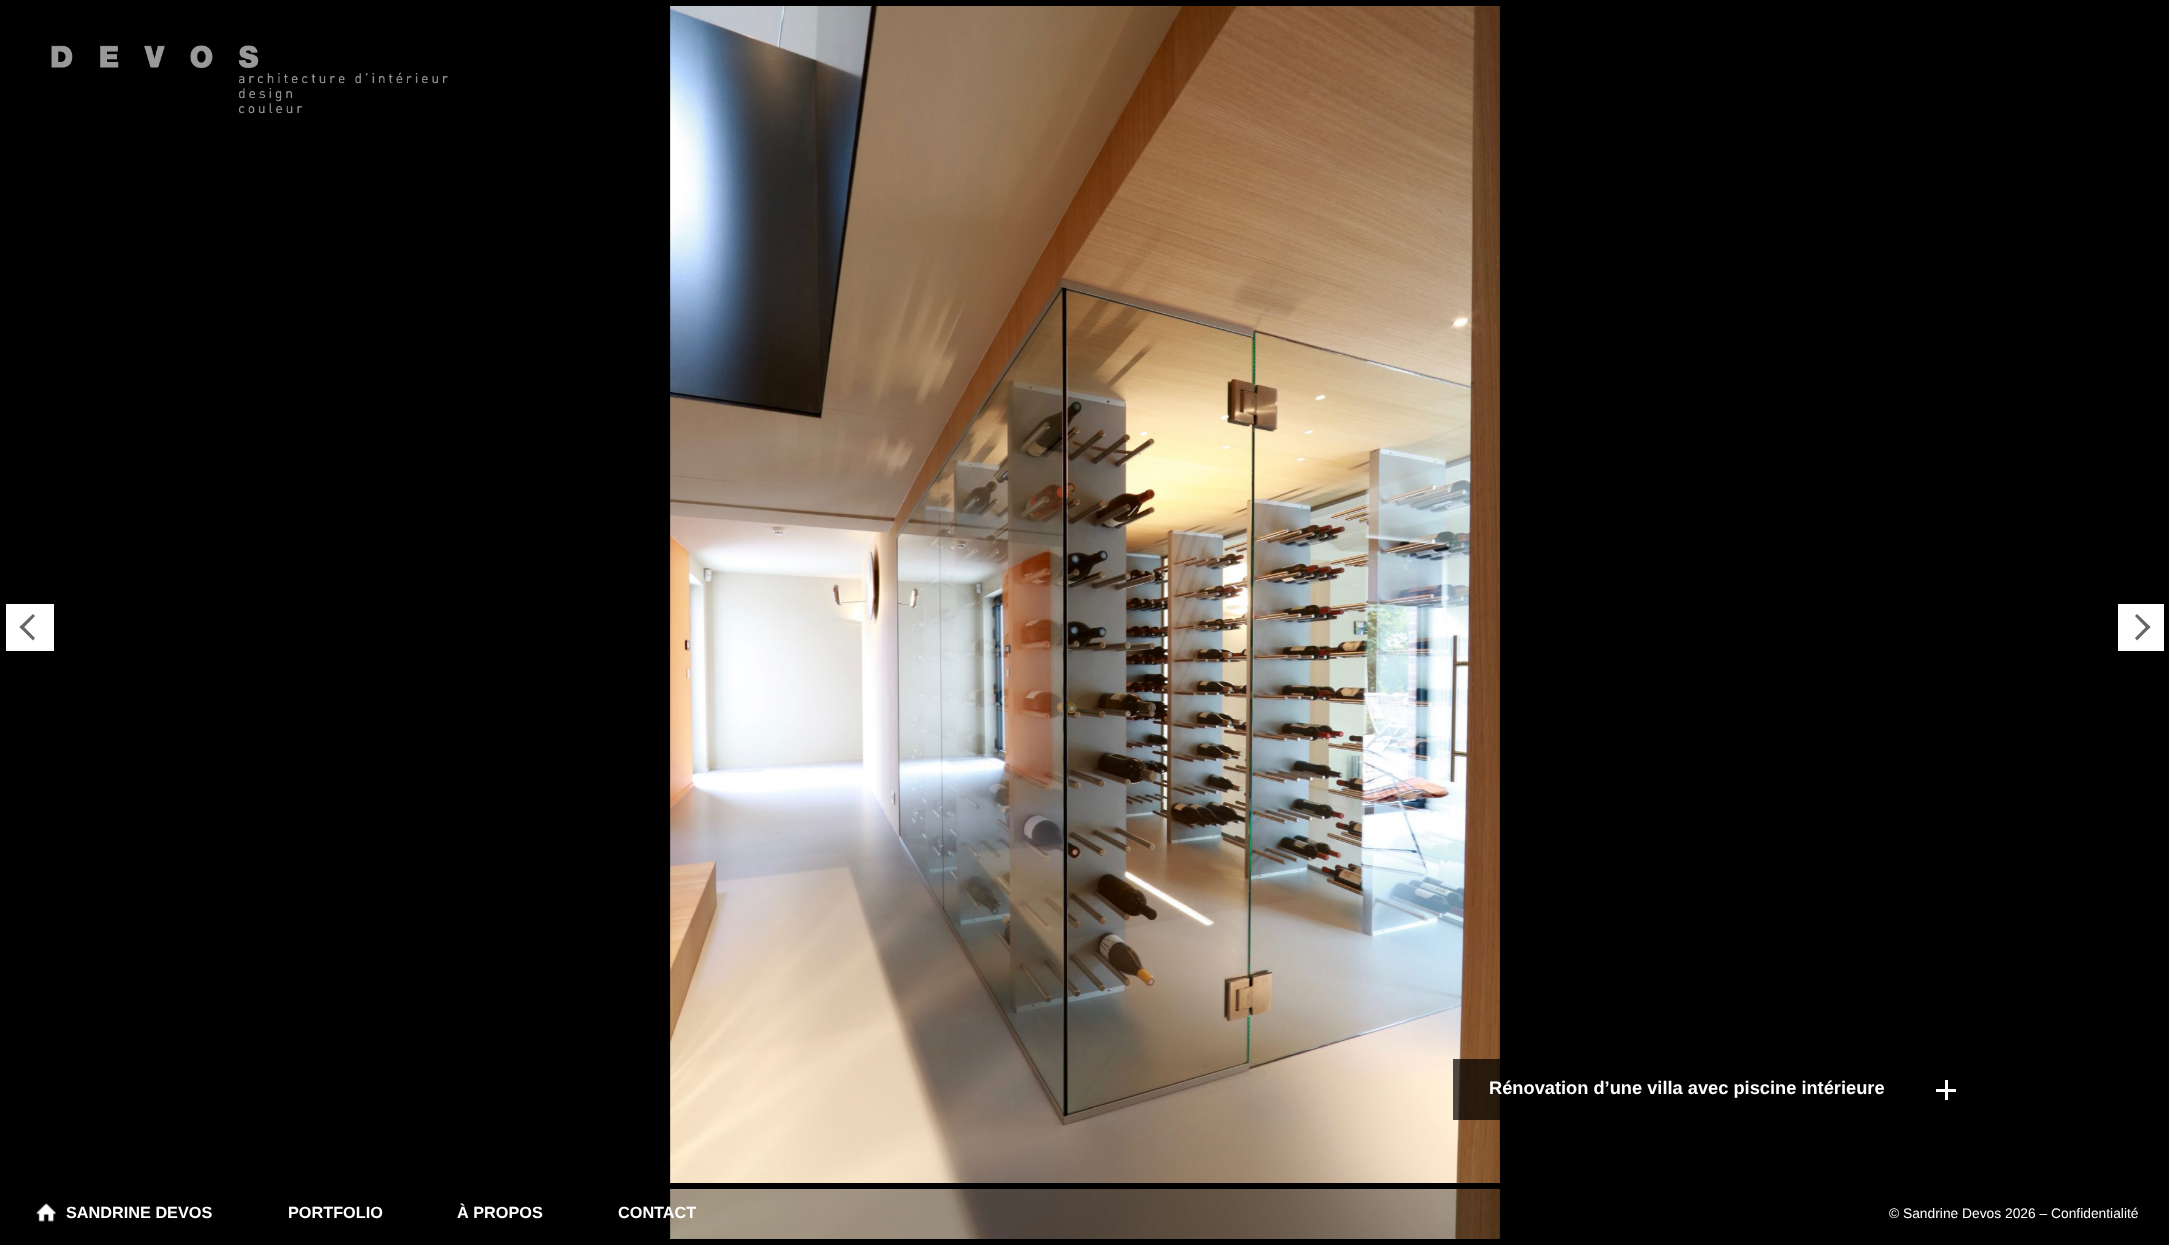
<svg xmlns="http://www.w3.org/2000/svg" width="2169" height="1245" viewBox="0 0 2169 1245">
  <style>
    .t1 { font: bold 18.25px Liberation Sans; fill: #fff; }
    .t2 { font: bold 16.25px Liberation Sans; fill: #fff; }
    .t3 { font: 13.8px Liberation Sans; fill: #fff; }
  </style>
  <rect width="100%" height="100%" fill="#000"/>
  <image x="670" y="6" width="831" height="1233" href="images/1.png"/>
  <rect x="6" y="604" width="48" height="47" fill="#fff"/>
  <path d="M22 625L35 638L33 640.5L19.5 627Z" fill="#666"/>
  <path d="M33 614L35 616L22 629.5L19.5 627Z" fill="#666"/>
  <rect x="2118" y="604" width="46" height="47" fill="#fff"/>
  <path d="M2148 629.5L2135 616L2137 614L2150.5 627Z" fill="#666"/>
  <path d="M2137 640.5L2135 638L2148 625L2150.5 627Z" fill="#666"/>
  <image x="51" y="45" width="397" height="69" href="images/2.png"/>
  <rect x="1453" y="1059" width="48" height="61" fill="#000000b3"/>
  <text x="1489" y="1094" class="t1">Rénovation d’une villa avec piscine intérieure</text>
  <rect x="1945" y="1080" width="3" height="20" fill="#fff"/>
  <rect x="1936" y="1089" width="20" height="3" fill="#fff"/>
  <rect x="670" y="1189" width="830" height="50" fill="#00000059"/>
  <rect x="670" y="1183" width="831" height="6" fill="#000"/>
  <image x="36" y="1203" width="21" height="19" href="images/3.png"/>
  <text x="66" y="1218" class="t2">SANDRINE DEVOS</text>
  <text x="288" y="1218" class="t2">PORTFOLIO</text>
  <text x="457" y="1218" class="t2">À PROPOS</text>
  <text x="618" y="1218" class="t2">CONTACT</text>
  <text x="1889" y="1218" class="t3">© Sandrine Devos 2026 – Confidentialité</text>
</svg>
